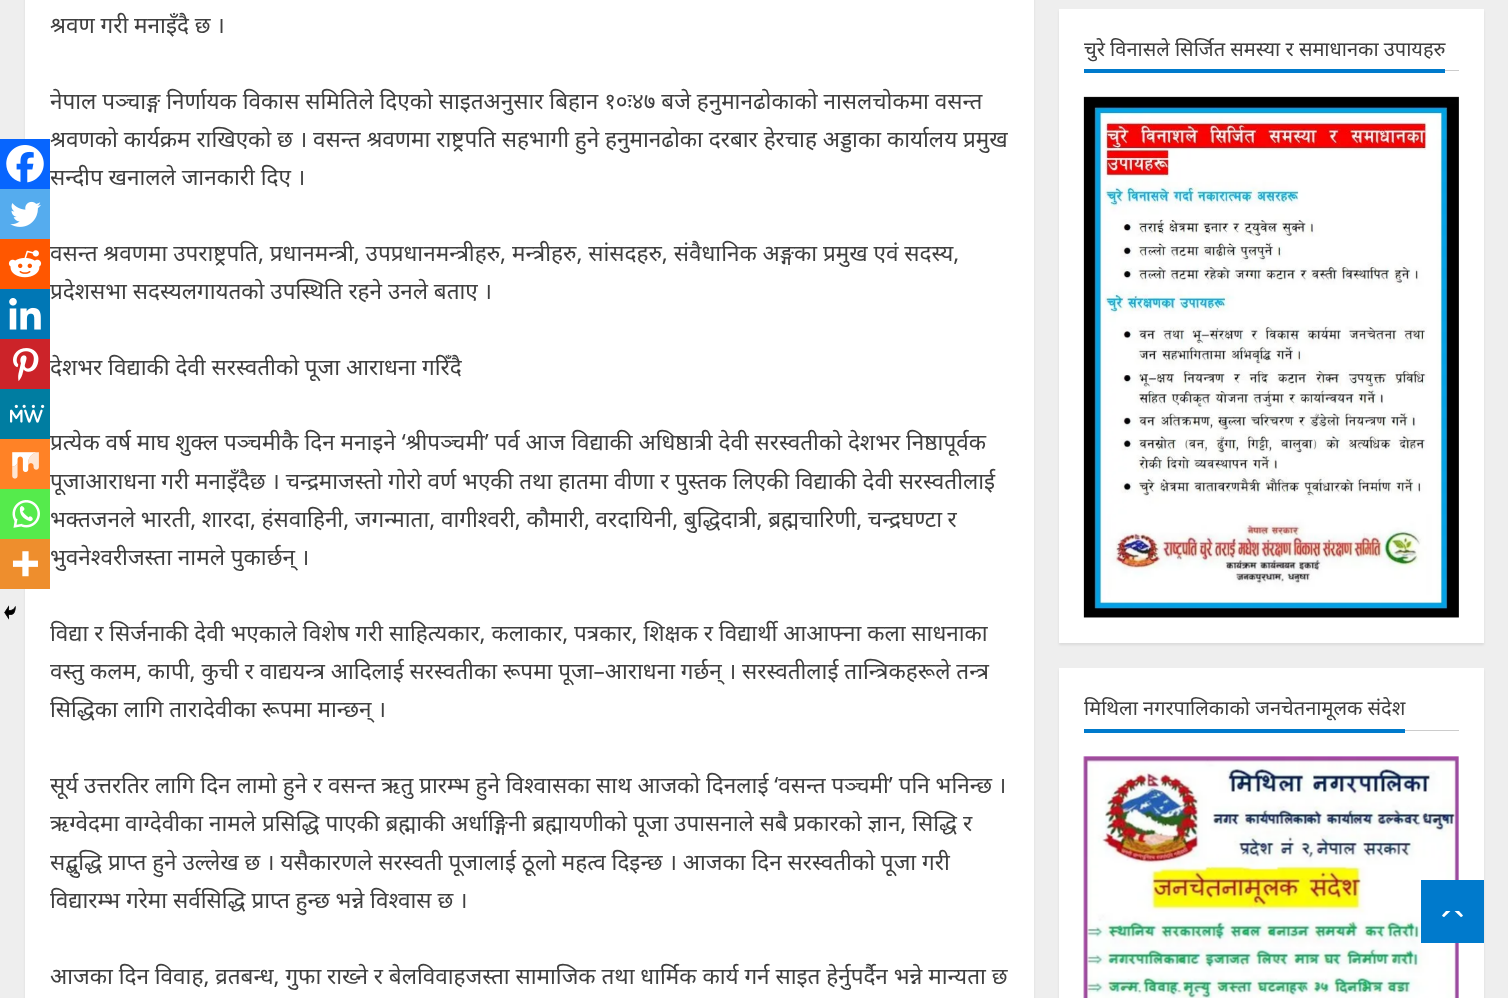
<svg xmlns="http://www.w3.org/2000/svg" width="1508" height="998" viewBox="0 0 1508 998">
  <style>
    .t1 { font: 22.5px Noto Sans; fill: #404040; }
    .t2 { font: 20px Noto Sans; fill: #404040; }
  </style>
  <rect width="100%" height="100%" fill="#eee"/>
  <rect x="25" y="-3" width="1009" height="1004" fill="#00000014" filter="blur(1px)"/>
  <rect x="25" y="0" width="1009" height="998" fill="#fff"/>
  <text x="50" y="33" class="t1">श्रवण गरी मनाइँदै छ ।</text>
  <rect x="0" y="139" width="50" height="50" fill="#0765fe"/>
  <image x="6" y="145" width="38" height="38" href="images/1.png"/>
  <rect x="0" y="189" width="50" height="50" fill="#55acee"/>
  <image x="10" y="201" width="31" height="26" href="images/2.png"/>
  <rect x="0" y="239" width="50" height="50" fill="#ff5700"/>
  <image x="8" y="250" width="34" height="28" href="images/3.png"/>
  <rect x="0" y="289" width="50" height="50" fill="#0077b5"/>
  <image x="9" y="298" width="32" height="32" href="images/4.png"/>
  <text x="50" y="375" class="t1">देशभर विद्याकी देवी सरस्वतीको पूजा आराधना गरिँदै</text>
  <rect x="0" y="339" width="50" height="50" fill="#cc2329"/>
  <image x="13" y="348" width="26" height="33" href="images/5.png"/>
  <rect x="0" y="389" width="50" height="50" fill="#007da1"/>
  <image x="10" y="404" width="35" height="19" href="images/6.png"/>
  <text x="50" y="489" class="t1">पूजाआराधना गरी मनाइँदैछ । चन्द्रमाजस्तो गोरो वर्ण भएकी तथा हातमा वीणा र पुस्तक लिएकी विद्याकी देवी सरस्वतीलाई</text>
  <rect x="0" y="439" width="50" height="50" fill="#ff8226"/>
  <image x="12" y="452" width="27" height="27" href="images/7.png"/>
  <rect x="0" y="489" width="50" height="50" fill="#55eb4c"/>
  <image x="12" y="500" width="28" height="28" href="images/8.png"/>
  <text x="50" y="565" class="t1">भुवनेश्वरीजस्ता नामले पुकार्छन् ।</text>
  <rect x="0" y="539" width="50" height="50" fill="#ee8e2d"/>
  <image x="12" y="551" width="26" height="26" href="images/9.png"/>
  <image x="4" y="605" width="12" height="15" href="images/10.png"/>
  <text x="50" y="109" class="t1">नेपाल पञ्चाङ्ग निर्णायक विकास समितिले दिएको साइतअनुसार बिहान १०ः४७ बजे हनुमानढोकाको नासलचोकमा वसन्त</text>
  <text x="50" y="147" class="t1">श्रवणको कार्यक्रम राखिएको छ । वसन्त श्रवणमा राष्ट्रपति सहभागी हुने हनुमानढोका दरबार हेरचाह अड्डाका कार्यालय प्रमुख</text>
  <text x="50" y="185" class="t1">सन्दीप खनालले जानकारी दिए ।</text>
  <text x="50" y="261" class="t1">वसन्त श्रवणमा उपराष्ट्रपति, प्रधानमन्त्री, उपप्रधानमन्त्रीहरु, मन्त्रीहरु, सांसदहरु, संवैधानिक अङ्गका प्रमुख एवं सदस्य,</text>
  <text x="50" y="299" class="t1">प्रदेशसभा सदस्यलगायतको उपस्थिति रहने उनले बताए ।</text>
  <text x="50" y="450" class="t1">प्रत्येक वर्ष माघ शुक्ल पञ्चमीकै दिन मनाइने ‘श्रीपञ्चमी’ पर्व आज विद्याकी अधिष्ठात्री देवी सरस्वतीको देशभर निष्ठापूर्वक</text>
  <text x="50" y="527" word-spacing="-0.25" class="t1">भक्तजनले भारती, शारदा, हंसवाहिनी, जगन्माता, वागीश्वरी, कौमारी, वरदायिनी, बुद्धिदात्री, ब्रह्मचारिणी, चन्द्रघण्टा र</text>
  <text x="50" y="641" class="t1">विद्या र सिर्जनाकी देवी भएकाले विशेष गरी साहित्यकार, कलाकार, पत्रकार, शिक्षक र विद्यार्थी आआफ्ना कला साधनाका</text>
  <text x="50" y="679" class="t1">वस्तु कलम, कापी, कुची र वाद्ययन्त्र आदिलाई सरस्वतीका रूपमा पूजा–आराधना गर्छन् । सरस्वतीलाई तान्त्रिकहरूले तन्त्र</text>
  <text x="50" y="717" class="t1">सिद्धिका लागि तारादेवीका रूपमा मान्छन् ।</text>
  <text x="50" y="793" class="t1">सूर्य उत्तरतिर लागि दिन लामो हुने र वसन्त ऋतु प्रारम्भ हुने विश्वासका साथ आजको दिनलाई ‘वसन्त पञ्चमी’ पनि भनिन्छ ।</text>
  <text x="50" y="831" class="t1">ऋग्वेदमा वाग्देवीका नामले प्रसिद्धि पाएकी ब्रह्माकी अर्धाङ्गिनी ब्रह्मायणीको पूजा उपासनाले सबै प्रकारको ज्ञान, सिद्धि र</text>
  <text x="50" y="870" class="t1">सद्बुद्धि प्राप्त हुने उल्लेख छ । यसैकारणले सरस्वती पूजालाई ठूलो महत्व दिइन्छ । आजका दिन सरस्वतीको पूजा गरी</text>
  <text x="50" y="908" class="t1">विद्यारम्भ गरेमा सर्वसिद्धि प्राप्त हुन्छ भन्ने विश्वास छ ।</text>
  <text x="50" y="984" class="t1">आजका दिन विवाह, व्रतबन्ध, गुफा राख्ने र बेलविवाहजस्ता सामाजिक तथा धार्मिक कार्य गर्न साइत हेर्नुपर्दैन भन्ने मान्यता छ</text>
  <rect x="1059" y="11" width="425" height="634" fill="#00000014" filter="blur(1px)"/>
  <rect x="1059" y="9" width="425" height="634" fill="#fff"/>
  <rect x="1445" y="70" width="14" height="1" fill="#ccc"/>
  <text x="1084" y="56" class="t2">चुरे विनासले सिर्जित समस्या र समाधानका उपायहरु</text>
  <rect x="1084" y="69" width="361" height="4" fill="#007acc"/>
  <image x="1083" y="96" width="376" height="522" href="images/11.png"/>
  <rect x="1059" y="670" width="425" height="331" fill="#00000014" filter="blur(1px)"/>
  <rect x="1059" y="668" width="425" height="330" fill="#fff"/>
  <rect x="1405" y="730" width="54" height="1" fill="#ccc"/>
  <text x="1084" y="715" class="t2">मिथिला नगरपालिकाको जनचेतनामूलक संदेश</text>
  <rect x="1084" y="729" width="321" height="4" fill="#007acc"/>
  <image x="1083" y="756" width="376" height="242" href="images/12.png"/>
  <rect x="1421" y="880" width="63" height="63" fill="#007acc"/>
  <path d="M1446 917.5H1459C1460.5 917.5 1462 917 1463 915.5L1459 911H1446L1442 915.5C1443 917 1444.5 917.5 1446 917.5Z" fill="#fff"/>
  <path d="M1465 921H1440L1452.5 909Z" fill="#007acc"/>
</svg>
